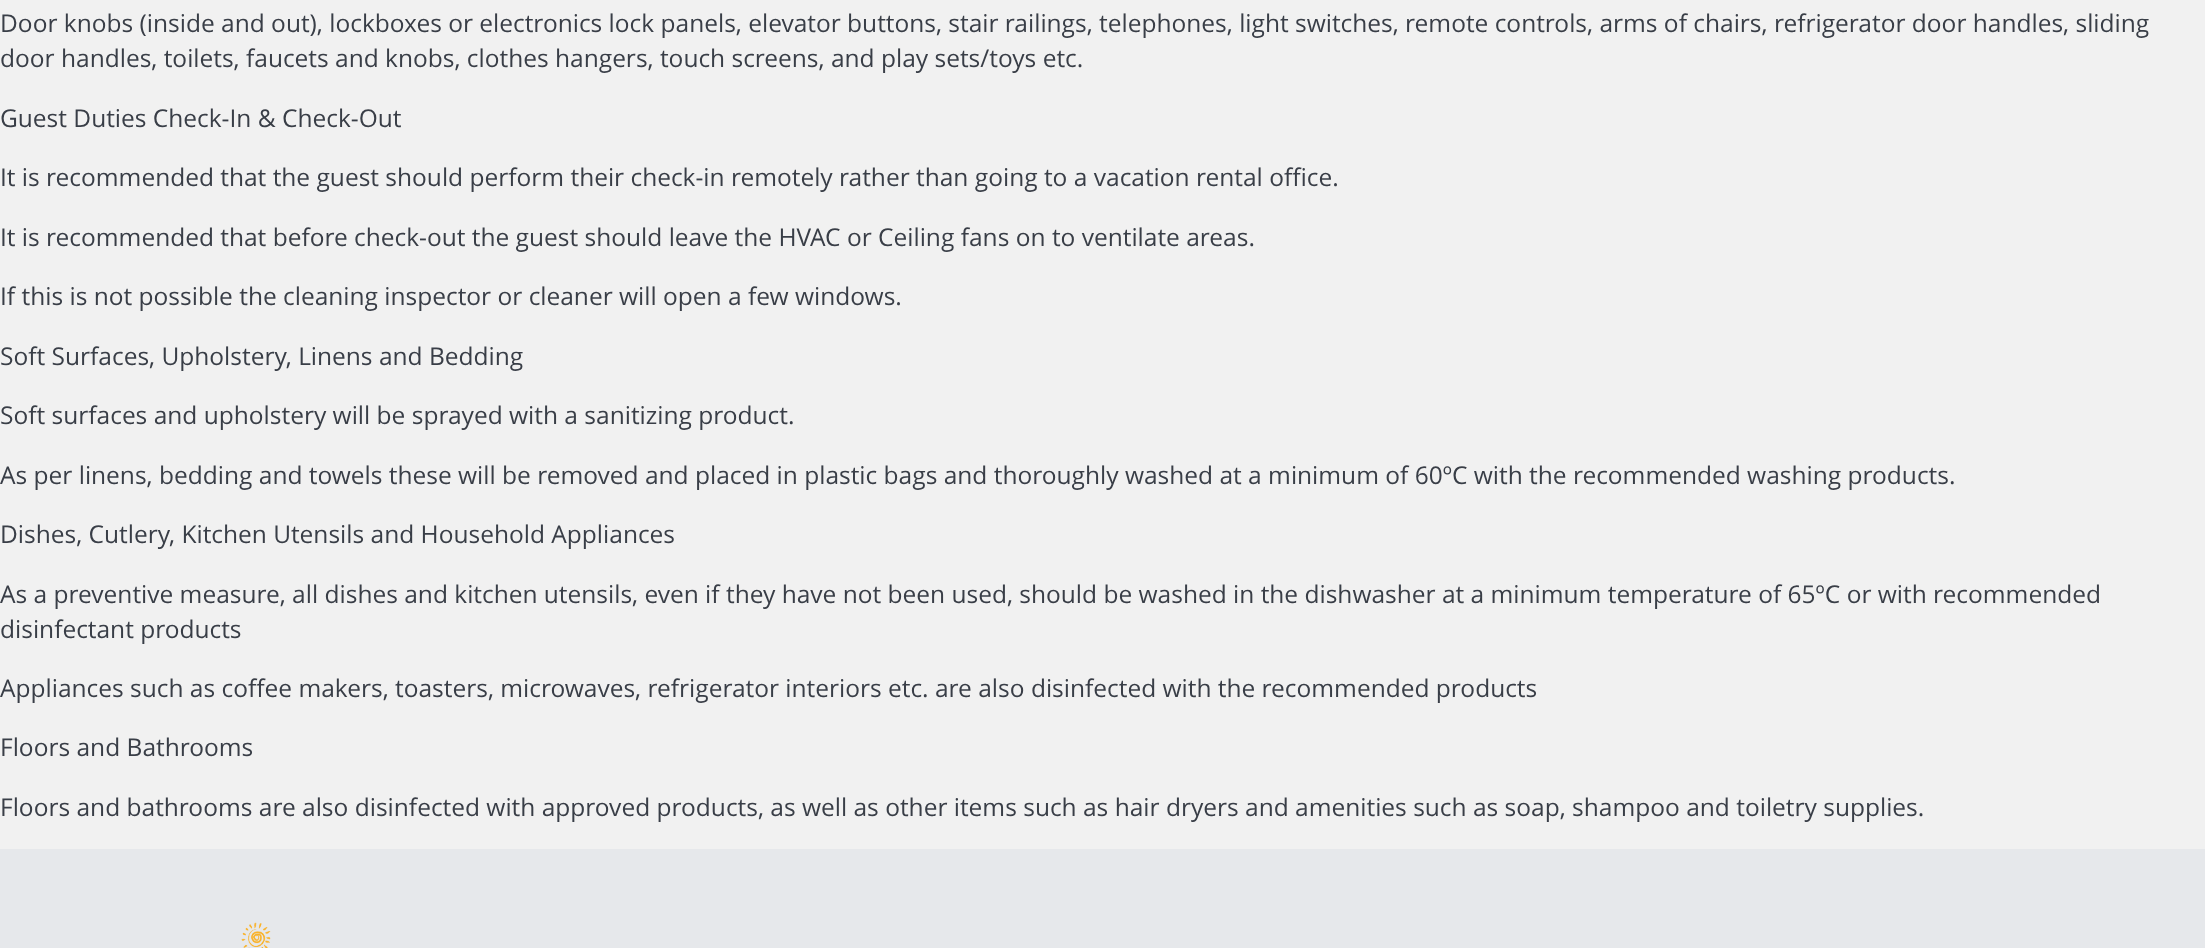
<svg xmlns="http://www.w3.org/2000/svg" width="2205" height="948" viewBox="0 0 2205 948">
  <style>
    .t1 { font: 24.5px Open Sans; fill: #393e47; }
  </style>
  <rect width="100%" height="100%" fill="#f1f1f1"/>
  <text x="0" y="32" class="t1">Door knobs (inside and out), lockboxes or electronics lock panels, elevator buttons, stair railings, telephones, light switches, remote controls, arms of chairs, refrigerator door handles, sliding</text>
  <text x="0" y="67" class="t1">door handles, toilets, faucets and knobs, clothes hangers, touch screens, and play sets/toys etc.</text>
  <text x="0" y="127" class="t1">Guest Duties Check-In &amp; Check-Out</text>
  <text x="0" y="186" class="t1">It is recommended that the guest should perform their check-in remotely rather than going to a vacation rental office.</text>
  <text x="0" y="246" class="t1">It is recommended that before check-out the guest should leave the HVAC or Ceiling fans on to ventilate areas.</text>
  <text x="0" y="305" class="t1">If this is not possible the cleaning inspector or cleaner will open a few windows.</text>
  <text x="0" y="365" class="t1">Soft Surfaces, Upholstery, Linens and Bedding</text>
  <text x="0" y="424" class="t1">Soft surfaces and upholstery will be sprayed with a sanitizing product.</text>
  <text x="0" y="484" class="t1">As per linens, bedding and towels these will be removed and placed in plastic bags and thoroughly washed at a minimum of 60ºC with the recommended washing products.</text>
  <text x="0" y="543" class="t1">Dishes, Cutlery, Kitchen Utensils and Household Appliances</text>
  <text x="0" y="603" class="t1">As a preventive measure, all dishes and kitchen utensils, even if they have not been used, should be washed in the dishwasher at a minimum temperature of 65ºC or with recommended</text>
  <text x="0" y="638" class="t1">disinfectant products</text>
  <text x="0" y="697" class="t1">Appliances such as coffee makers, toasters, microwaves, refrigerator interiors etc. are also disinfected with the recommended products</text>
  <text x="0" y="756" class="t1">Floors and Bathrooms</text>
  <text x="0" y="816" class="t1">Floors and bathrooms are also disinfected with approved products, as well as other items such as hair dryers and amenities such as soap, shampoo and toiletry supplies.</text>
  <rect x="0" y="849" width="2205" height="99" fill="#e6e8eb"/>
  <image x="241" y="922" width="30" height="26" href="images/1.png"/>
</svg>
